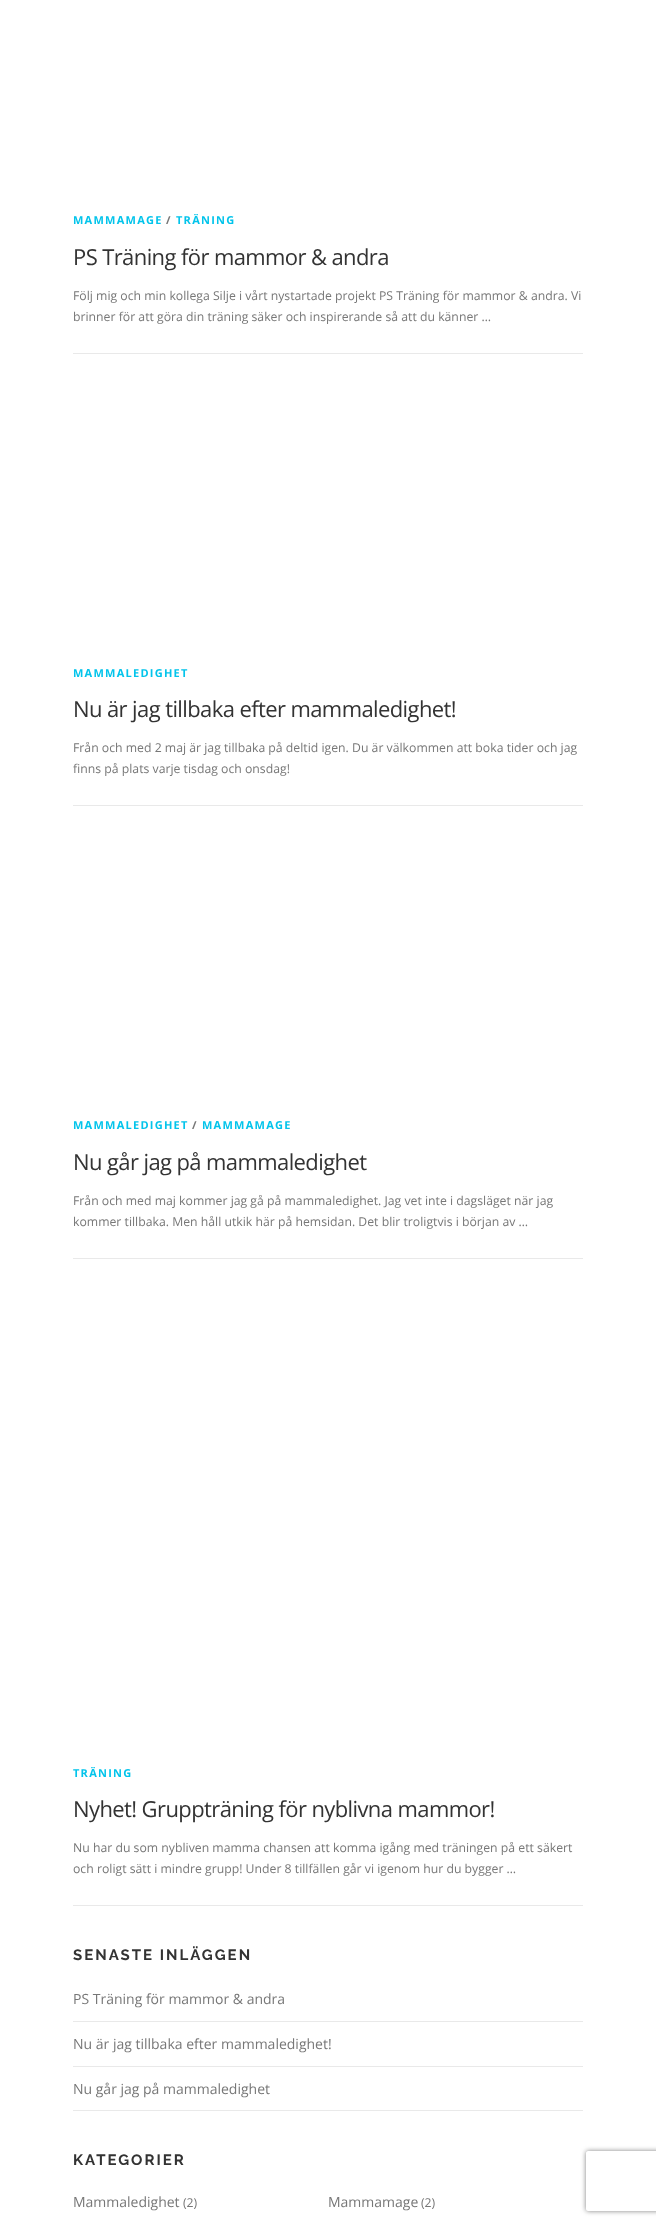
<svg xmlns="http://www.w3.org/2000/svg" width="656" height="2225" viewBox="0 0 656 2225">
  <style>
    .t1 { font: bold 11px Open Sans; letter-spacing: 1.25px; fill: #03c4eb; }
    .t2 { font: bold 11px Open Sans; letter-spacing: 1.25px; fill: #777; }
    .t3 { font: 22px Open Sans; letter-spacing: -0.6px; fill: #333; }
    .t4 { font: 12.25px Open Sans; fill: #777; }
    .t5 { font: bold 15px Raleway; letter-spacing: 2px; fill: #333; }
    .t6 { font: 14px Open Sans; fill: #777; }
  </style>
  <defs>
    <clipPath id="clip1"><path d="M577 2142H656V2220H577ZM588 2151H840C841 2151 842 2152 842 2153V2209C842 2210 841 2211 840 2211H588C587 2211 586 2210 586 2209V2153C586 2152 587 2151 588 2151Z" clip-rule="evenodd"/></clipPath>
  </defs>
  <rect width="100%" height="100%" fill="#fff"/>
  <text x="73" y="224" class="t1">MAMMAMAGE</text>
  <text x="166" y="224" class="t2">/</text>
  <text x="176" y="224" class="t1">TRÄNING</text>
  <text x="73" y="265" class="t3">PS Träning för mammor &amp; andra</text>
  <text x="73" y="300" class="t4">Följ mig och min kollega Silje i vårt nystartade projekt PS Träning för mammor &amp; andra. Vi</text>
  <text x="73" y="321" class="t4">brinner för att göra din träning säker och inspirerande så att du känner …</text>
  <rect x="73" y="353" width="510" height="1" fill="#e9e9e9"/>
  <text x="73" y="677" class="t1">MAMMALEDIGHET</text>
  <text x="73" y="717" class="t3">Nu är jag tillbaka efter mammaledighet!</text>
  <text x="73" y="752" class="t4">Från och med 2 maj är jag tillbaka på deltid igen. Du är välkommen att boka tider och jag</text>
  <text x="73" y="773" class="t4">finns på plats varje tisdag och onsdag!</text>
  <rect x="73" y="805" width="510" height="1" fill="#e9e9e9"/>
  <text x="73" y="1129" class="t1">MAMMALEDIGHET</text>
  <text x="192" y="1129" class="t2">/</text>
  <text x="202" y="1129" class="t1">MAMMAMAGE</text>
  <text x="73" y="1170" class="t3">Nu går jag på mammaledighet</text>
  <text x="73" y="1205" class="t4">Från och med maj kommer jag gå på mammaledighet. Jag vet inte i dagsläget när jag</text>
  <text x="73" y="1226" class="t4">kommer tillbaka. Men håll utkik här på hemsidan. Det blir troligtvis i början av …</text>
  <rect x="73" y="1258" width="510" height="1" fill="#e9e9e9"/>
  <rect x="73" y="1905" width="510" height="1" fill="#e9e9e9"/>
  <text x="73" y="1777" class="t1">TRÄNING</text>
  <text x="73" y="1817" class="t3">Nyhet! Gruppträning för nyblivna mammor!</text>
  <text x="73" y="1852" class="t4">Nu har du som nybliven mamma chansen att komma igång med träningen på ett säkert</text>
  <text x="73" y="1873" class="t4">och roligt sätt i mindre grupp! Under 8 tillfällen går vi igenom hur du bygger …</text>
  <text x="73" y="1960" class="t5">SENASTE INLÄGGEN</text>
  <rect x="73" y="2021" width="510" height="1" fill="#e9e9e9"/>
  <text x="73" y="2004" class="t6">PS Träning för mammor &amp; andra</text>
  <rect x="73" y="2066" width="510" height="1" fill="#e9e9e9"/>
  <text x="73" y="2049" class="t6">Nu är jag tillbaka efter mammaledighet!</text>
  <rect x="73" y="2110" width="510" height="1" fill="#e9e9e9"/>
  <text x="73" y="2094" class="t6">Nu går jag på mammaledighet</text>
  <text x="73" y="2165" class="t5">KATEGORIER</text>
  <text x="73" y="2207" class="t6">Mammaledighet</text>
  <text x="183" y="2207" class="t4">(2)</text>
  <text x="328" y="2207" class="t6">Mammamage</text>
  <text x="421" y="2207" class="t4">(2)</text>
  <g clip-path="url(#clip1)">
    <rect x="586" y="2151" width="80" height="60" rx="2" fill="#808080" filter="blur(2.5px)"/>
  </g>
</svg>
